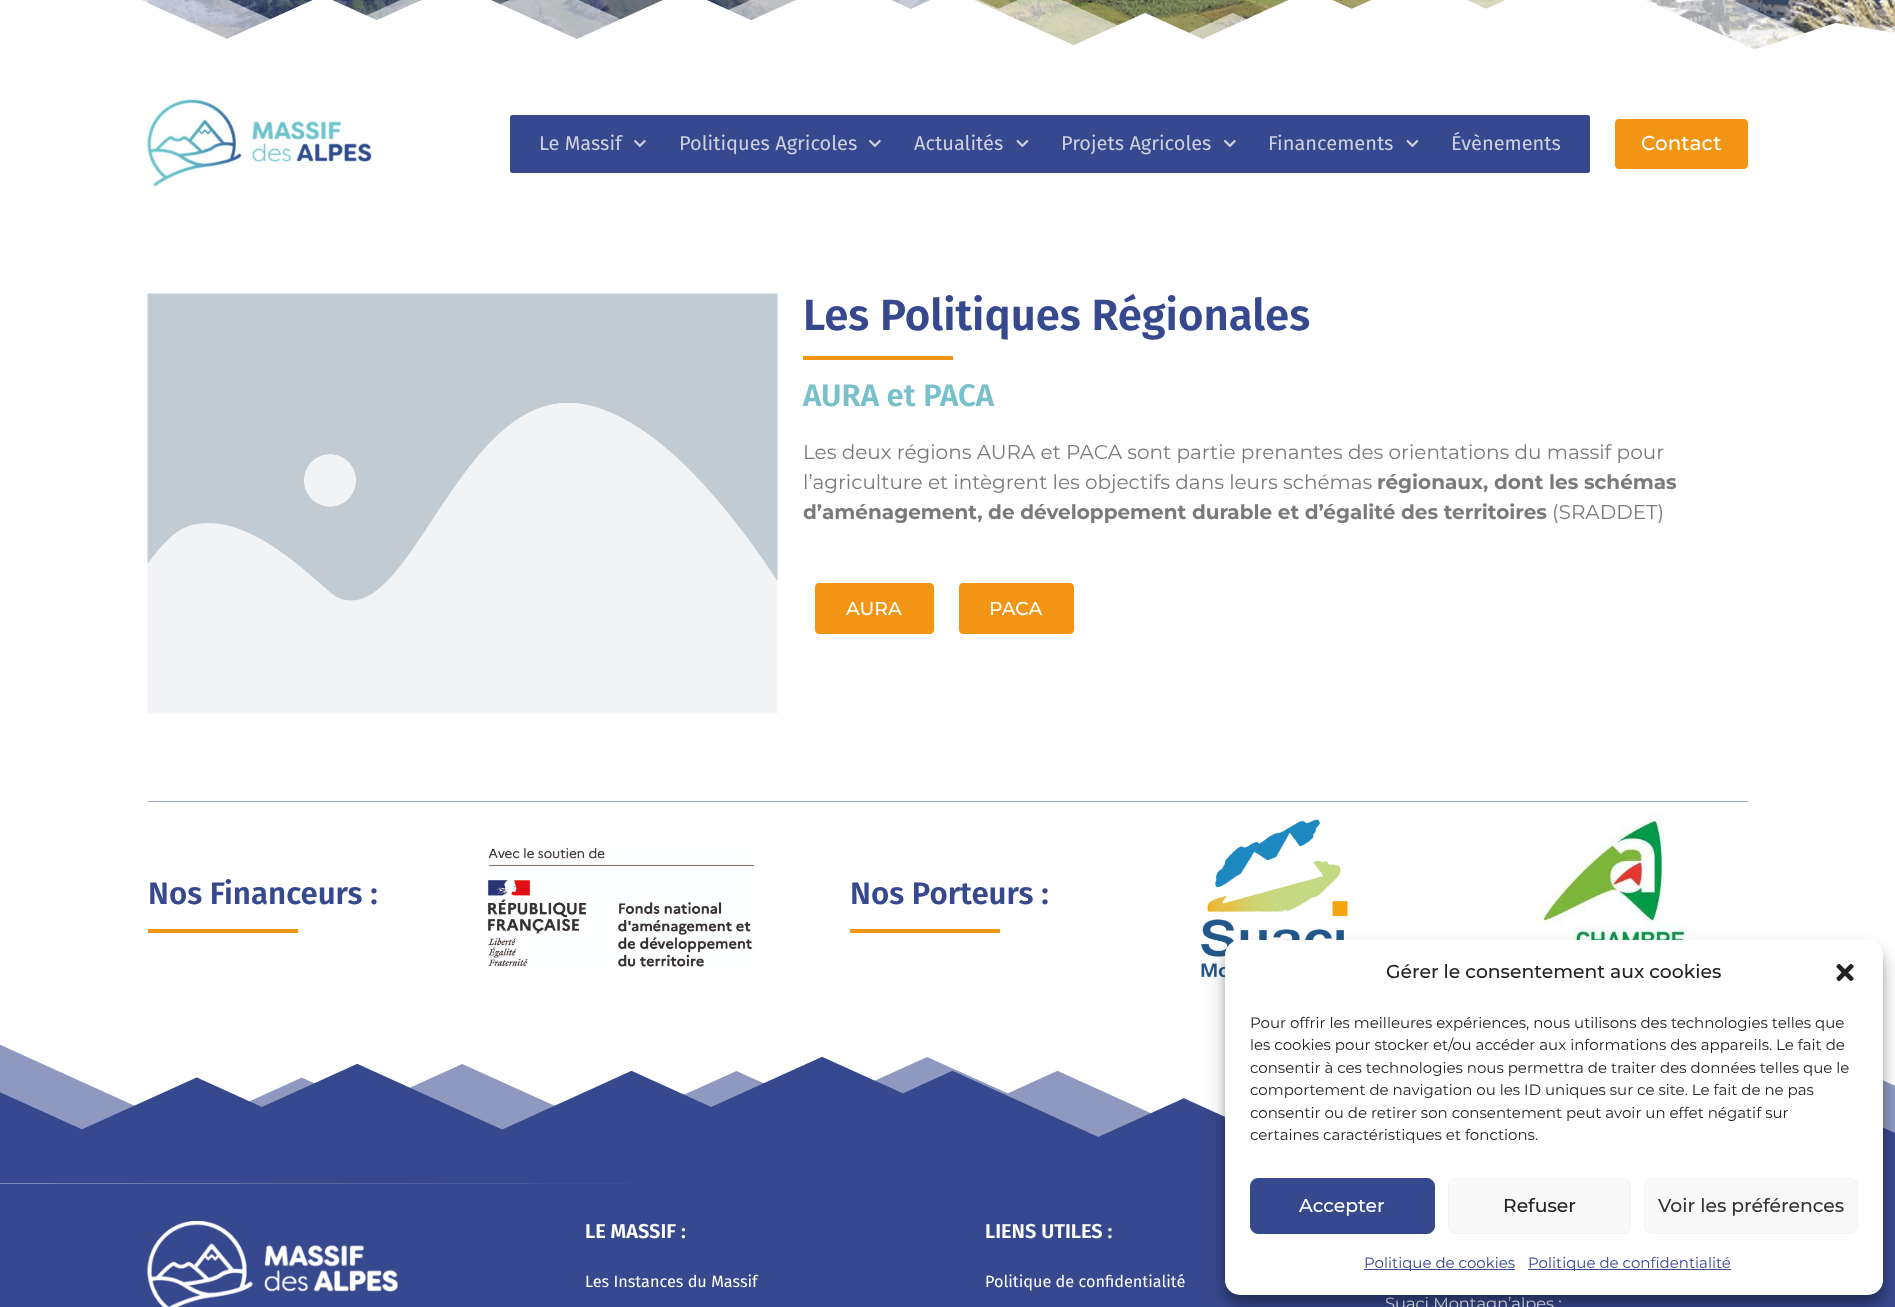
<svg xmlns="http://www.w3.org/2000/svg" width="1895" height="1307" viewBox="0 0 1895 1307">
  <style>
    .t1 { font: 20px Fira Sans; fill: #cdd0dd; }
    .t2 { font: 500 20px Montserrat; fill: #fff; }
    .t3 { font: 600 43.75px Fira Sans; fill: #37498e; }
    .t4 { font: 600 31.25px Fira Sans; fill: #78c1ca; }
    .t5 { font: 20px Montserrat; fill: #7a7a7a; }
    .t6 { font: bold 20px Montserrat; fill: #7a7a7a; }
    .t7 { font: 500 18.75px Montserrat; fill: #fff; }
    .t8 { font: 600 31.25px Fira Sans; fill: #37498e; }
    .t9 { font: 600 20px Fira Sans; fill: #fff; }
    .t10 { font: 16.25px Fira Sans; fill: #fff; }
    .t11 { font: 16.25px Montserrat; fill: #fff; }
    .t12 { font: 500 18.75px Montserrat; fill: #222; }
    .t13 { font: 15px Montserrat; fill: #222; }
    .t14 { font: 500 18.75px Montserrat; fill: #333; }
    .t15 { font: 15px Montserrat; fill: #37498e; }
  </style>
  <rect width="100%" height="100%" fill="#fff"/>
  <image x="141" y="0" width="1754" height="50" href="images/1.png"/>
  <rect x="148" y="0" width="783" height="39" fill="#37498e82"/>
  <image x="0" y="0" width="1895" height="81" href="images/2.png"/>
  <image x="147" y="99" width="225" height="88" href="images/3.png"/>
  <rect x="510" y="115" width="1080" height="58" rx="2.5" fill="#37498e"/>
  <text x="539" y="150" class="t1">Le Massif</text>
  <image x="634" y="139" width="12" height="9" href="images/4.png"/>
  <text x="679" y="150" class="t1">Politiques Agricoles</text>
  <image x="869" y="139" width="12" height="9" href="images/4.png"/>
  <text x="914" y="150" class="t1">Actualités</text>
  <image x="1016" y="139" width="13" height="9" href="images/5.png"/>
  <text x="1061" y="150" class="t1">Projets Agricoles</text>
  <image x="1224" y="139" width="12" height="9" href="images/4.png"/>
  <text x="1268" y="150" class="t1">Financements</text>
  <image x="1406" y="139" width="13" height="9" href="images/5.png"/>
  <text x="1451" y="150" class="t1">Évènements</text>
  <rect x="1615.5" y="119.5" width="132" height="49" rx="3.5" fill="#f29514" stroke="#f29514"/>
  <text x="1641" y="150" class="t2">Contact</text>
  <image x="147" y="293" width="631" height="421" href="images/6.png"/>
  <text x="803" y="330" class="t3">Les Politiques Régionales</text>
  <rect x="803" y="356" width="150" height="4" fill="#f29514"/>
  <text x="803" y="406" class="t4">AURA et PACA</text>
  <text x="803" y="459" class="t5">Les deux régions AURA et PACA sont partie prenantes des orientations du massif pour</text>
  <text x="803" y="489" class="t5">l’agriculture et intègrent les objectifs dans leurs schémas</text>
  <text x="1377" y="489" class="t6">régionaux, dont les schémas</text>
  <text x="803" y="519" class="t6">d’aménagement, de développement durable et d’égalité des territoires</text>
  <text x="1552" y="519" class="t5">(SRADDET)</text>
  <rect x="815.5" y="583.5" width="118" height="50" rx="3.5" fill="#f29514" stroke="#f29514"/>
  <text x="846" y="615" class="t7">AURA</text>
  <rect x="959.5" y="583.5" width="114" height="50" rx="3.5" fill="#f29514" stroke="#f29514"/>
  <text x="989" y="615" class="t7">PACA</text>
  <rect x="148" y="801" width="1600" height="1" fill="#99a2c5"/>
  <text x="148" y="904" class="t8">Nos Financeurs :</text>
  <rect x="148" y="929" width="150" height="4" fill="#f29514"/>
  <image x="487" y="847" width="268" height="120" href="images/7.png"/>
  <text x="850" y="904" class="t8">Nos Porteurs :</text>
  <rect x="850" y="929" width="150" height="4" fill="#f29514"/>
  <image x="1201" y="819" width="147" height="159" href="images/8.png"/>
  <image x="1507" y="813" width="181" height="127" href="images/9.png"/>
  <image x="0" y="1044" width="1895" height="140" href="images/10.png"/>
  <rect x="0" y="1184" width="1895" height="123" fill="#37498e"/>
  <image x="147" y="1221" width="251" height="86" href="images/11.png"/>
  <text x="585" y="1238" class="t9">LE MASSIF :</text>
  <text x="585" y="1287" class="t10">Les Instances du Massif</text>
  <text x="985" y="1238" class="t9">LIENS UTILES :</text>
  <text x="985" y="1287" class="t10">Politique de confidentialité</text>
  <text x="1385" y="1309" class="t11">Suaci Montagn’alpes :</text>
  <rect x="1225" y="948" width="658" height="355" rx="15" fill="#0000003b" filter="blur(4px)"/>
  <rect x="1225" y="953" width="658" height="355" rx="15" fill="#00000030" filter="blur(12.5px)"/>
  <rect x="1225" y="940" width="658" height="355" rx="15" fill="#fff"/>
  <text x="1386" y="978" class="t12">Gérer le consentement aux cookies</text>
  <image x="1836" y="963" width="18" height="18" href="images/12.png"/>
  <text x="1250" y="1028" class="t13">Pour offrir les meilleures expériences, nous utilisons des technologies telles que</text>
  <text x="1250" y="1050" class="t13">les cookies pour stocker et/ou accéder aux informations des appareils. Le fait de</text>
  <text x="1250" y="1073" class="t13">consentir à ces technologies nous permettra de traiter des données telles que le</text>
  <text x="1250" y="1095" class="t13">comportement de navigation ou les ID uniques sur ce site. Le fait de ne pas</text>
  <text x="1250" y="1118" class="t13">consentir ou de retirer son consentement peut avoir un effet négatif sur</text>
  <text x="1250" y="1140" class="t13">certaines caractéristiques et fonctions.</text>
  <rect x="1250.5" y="1178.5" width="184" height="55" rx="7.5" fill="#37498e" stroke="#37498e"/>
  <text x="1299" y="1212" class="t7">Accepter</text>
  <rect x="1448.5" y="1178.5" width="182" height="55" rx="7.5" fill="#f9f9f9" stroke="#f2f2f2"/>
  <text x="1503" y="1212" class="t12">Refuser</text>
  <rect x="1644.5" y="1178.5" width="213" height="55" rx="7.5" fill="#f9f9f9" stroke="#f2f2f2"/>
  <text x="1658" y="1212" class="t14">Voir les préférences</text>
  <rect x="1364" y="1269" width="151" height="1" fill="#37498e"/>
  <text x="1364" y="1268" class="t15">Politique de cookies</text>
  <rect x="1528" y="1269" width="203" height="1" fill="#37498e"/>
  <text x="1528" y="1268" class="t15">Politique de confidentialité</text>
</svg>
